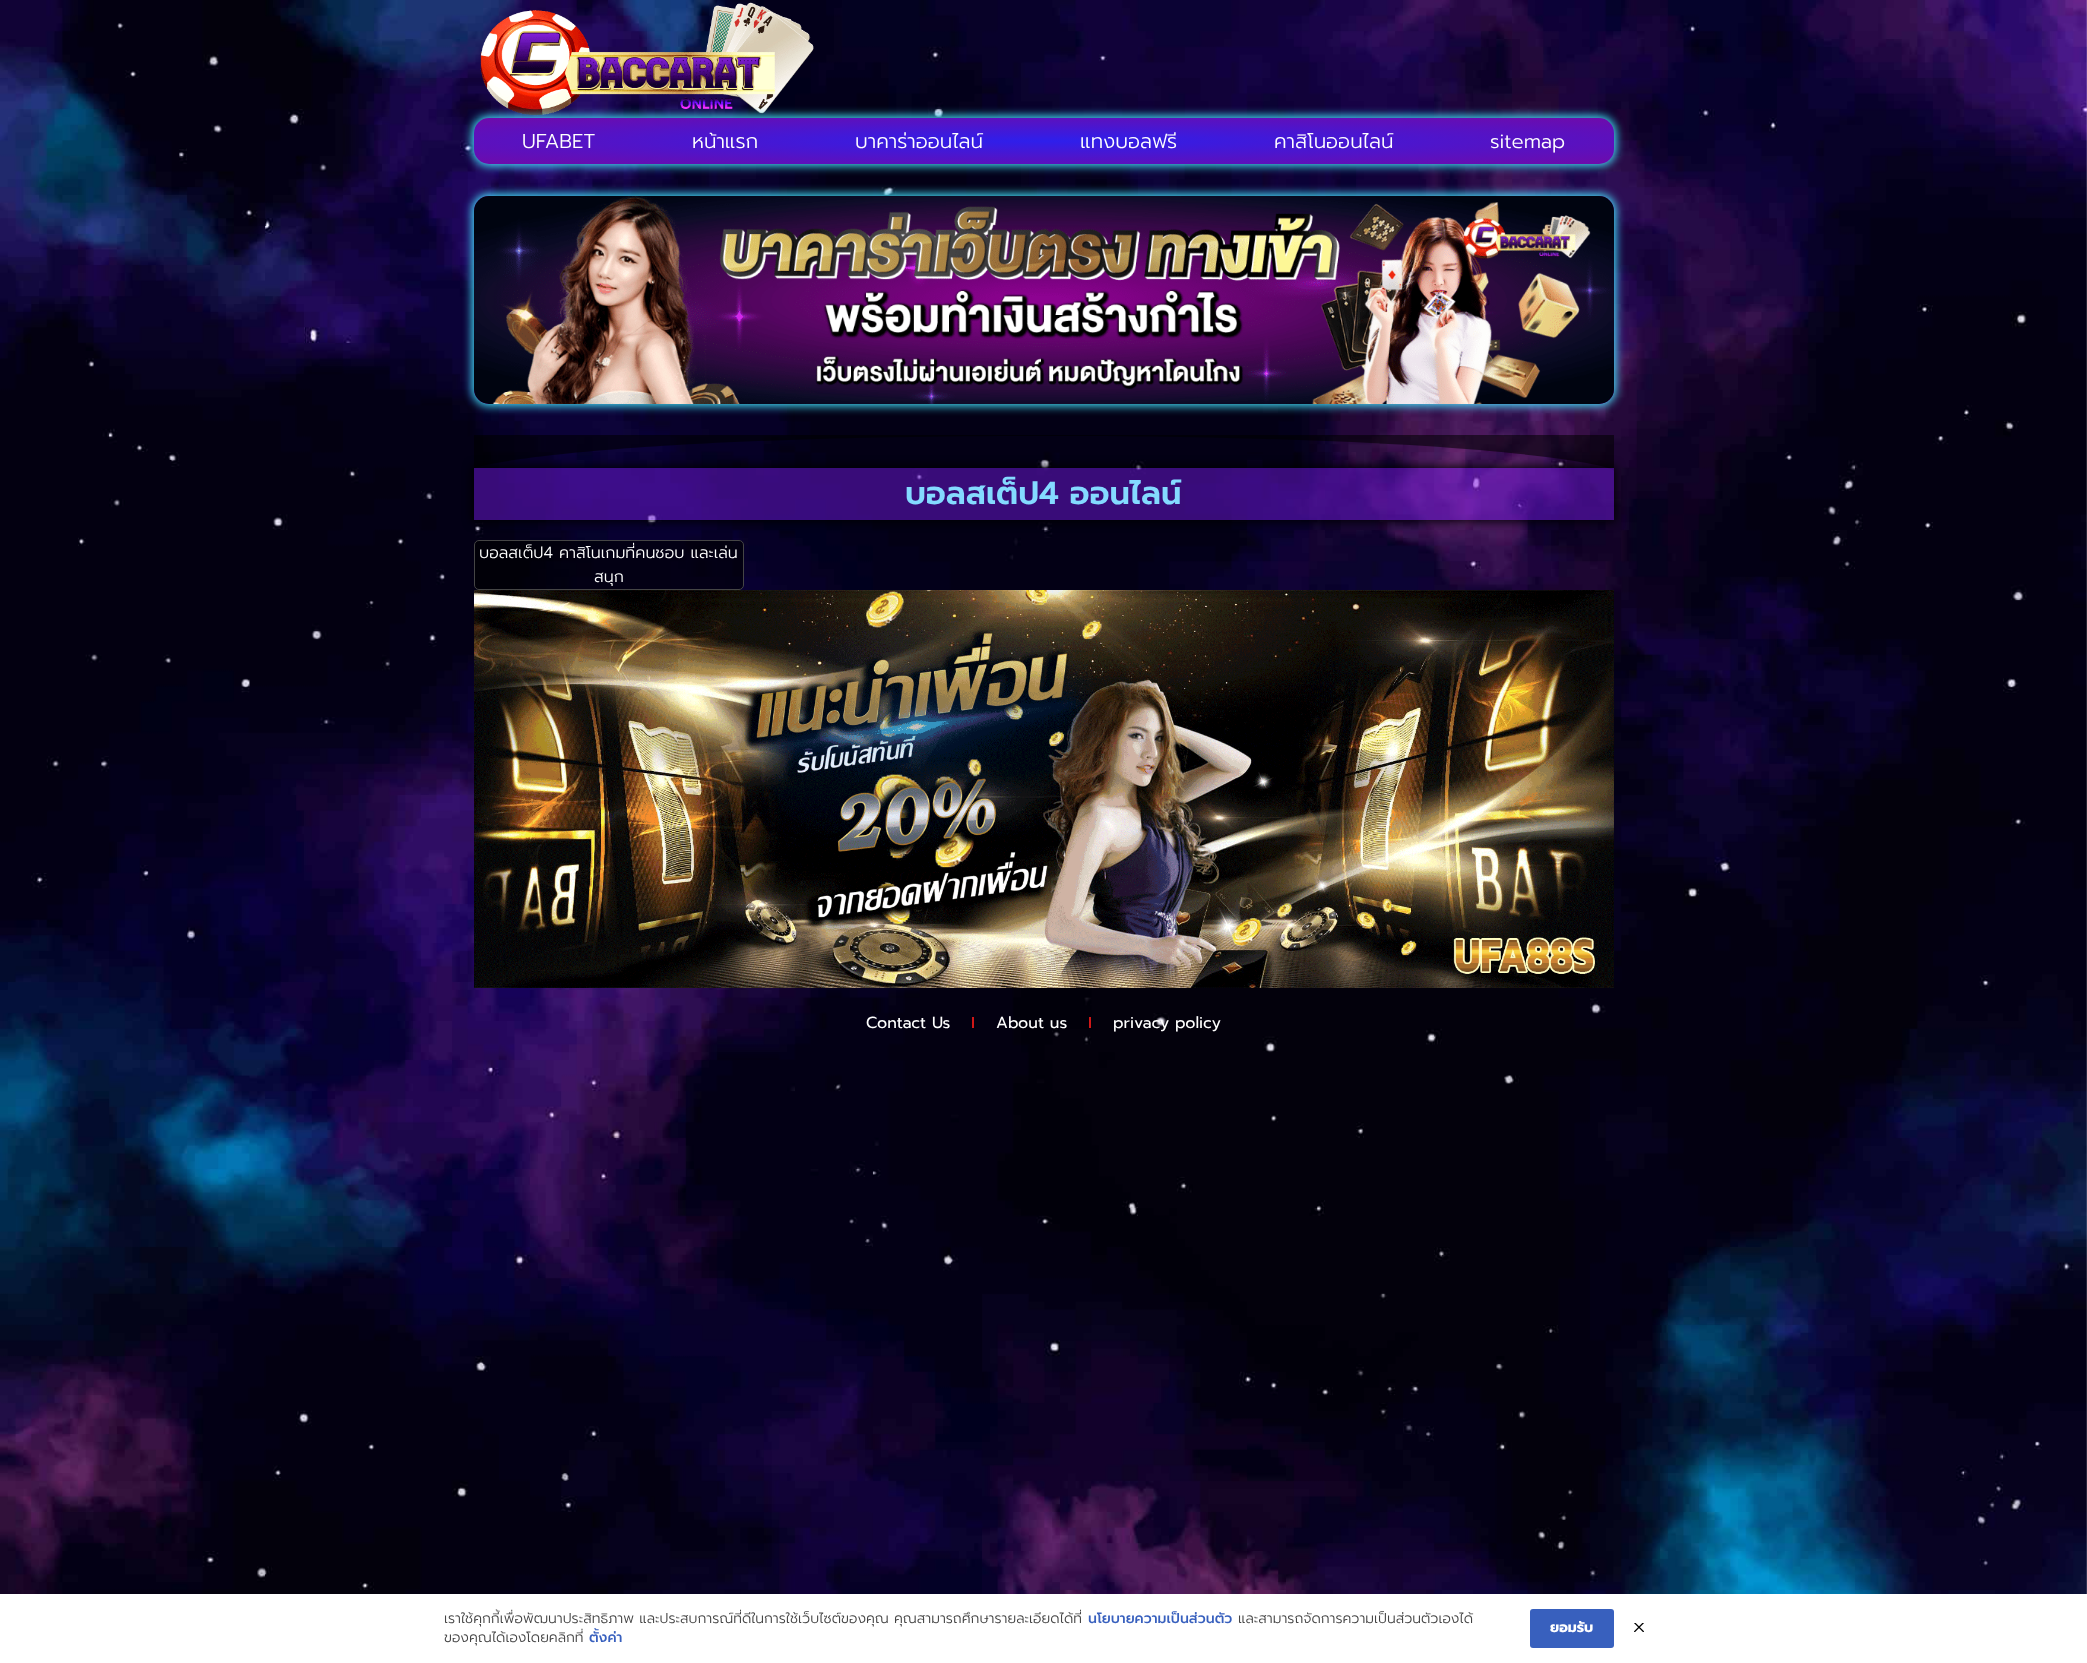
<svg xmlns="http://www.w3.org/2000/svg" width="2087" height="1663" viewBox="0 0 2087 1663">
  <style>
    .t1 { font: 300 20px Prompt; fill: #fff; }
    .t2 { font: 600 32px Prompt; fill: #84daff; }
    .t3 { font: 300 16px Prompt; fill: #fff; }
    .t4 { font: 16px Prompt; fill: #fff; }
    .t5 { font: 300 14px Prompt; fill: #444; }
    .t6 { font: 500 14px Prompt; fill: #3860be; }
    .t7 { font: bold 14px Prompt; fill: #fff; }
  </style>
  <defs>
    <radialGradient id="g1" gradientUnits="userSpaceOnUse" cx="0" cy="0" r="1" gradientTransform="matrix(806 0 0 33 1044 141)"><stop offset="0" stop-color="#2e1fec"/><stop offset="1" stop-color="#700aa9"/></radialGradient>
    <radialGradient id="g2" gradientUnits="userSpaceOnUse" cx="0" cy="0" r="1" gradientTransform="matrix(806 0 0 147 1044 300)"><stop offset="0" stop-color="#2e1fec"/><stop offset="1" stop-color="#700aa9"/></radialGradient>
    <clipPath id="clip1"><rect x="474" y="435" width="1140" height="36"/></clipPath>
    <clipPath id="clip2"><path d="M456 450H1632V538H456ZM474 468H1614V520H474Z" clip-rule="evenodd"/></clipPath>
  </defs>
  <rect width="100%" height="100%" fill="#fff"/>
  <image x="0" y="0" width="2087" height="1594" href="images/1.png"/>
  <image x="480" y="2" width="334" height="114" href="images/2.png"/>
  <rect x="472" y="116" width="1144" height="50" rx="17" fill="#44e4ff" filter="blur(5px)"/>
  <rect x="474" y="118" width="1140" height="46" rx="15" fill="url(#g1)"/>
  <text x="522" y="148" class="t1">UFABET</text>
  <text x="692" y="148" class="t1">หน้าแรก</text>
  <text x="855" y="148" class="t1">บาคาร่าออนไลน์</text>
  <text x="1080" y="148" class="t1">แทงบอลฟรี</text>
  <text x="1274" y="148" class="t1">คาสิโนออนไลน์</text>
  <text x="1490" y="148" class="t1">sitemap</text>
  <rect x="472" y="194" width="1144" height="212" rx="17" fill="#44e4ff" filter="blur(5px)"/>
  <rect x="474" y="196" width="1140" height="208" rx="15" fill="url(#g2)"/>
  <image x="474" y="196" width="1140" height="208" href="images/3.png"/>
  <g clip-path="url(#clip1)">
    <path d="M1043 436C1469 436 1613 464 1614 471V435H472V470C472 464 617 436 1043 436Z" fill="#0000008c"/>
  </g>
  <g clip-path="url(#clip2)">
    <rect x="472" y="466" width="1144" height="56" fill="#000000e0" filter="blur(5px)"/>
  </g>
  <rect x="474" y="468" width="1140" height="52" fill="#7018dd80"/>
  <text x="905" y="504" class="t2">บอลสเต็ป4 ออนไลน์</text>
  <rect x="474.5" y="540.5" width="269" height="49" rx="4.5" fill="#00000096" stroke="#454545"/>
  <text x="479" y="558" class="t3">บอลสเต็ป4 คาสิโนเกมที่คนชอบ และเล่น</text>
  <text x="594" y="582" class="t3">สนุก</text>
  <image x="474" y="590" width="1140" height="398" href="images/4.png"/>
  <text x="866" y="1028" class="t4">Contact Us</text>
  <rect x="972" y="1017" width="2" height="11" fill="#d01717"/>
  <text x="996" y="1028" class="t4">About us</text>
  <rect x="1089" y="1017" width="2" height="11" fill="#d01717"/>
  <text x="1113" y="1028" class="t4">privacy policy</text>
  <text x="444" y="1623" class="t5">เราใช้คุกกี้เพื่อพัฒนาประสิทธิภาพ และประสบการณ์ที่ดีในการใช้เว็บไซต์ของคุณ คุณสามารถศึกษารายละเอียดได้ที่</text>
  <text x="1088" y="1623" class="t6">นโยบายความเป็นส่วนตัว</text>
  <text x="1238" y="1623" class="t5">และสามารถจัดการความเป็นส่วนตัวเองได้</text>
  <text x="444" y="1642" class="t5">ของคุณได้เองโดยคลิกที่</text>
  <text x="589" y="1642" class="t6">ตั้งค่า</text>
  <rect x="1530" y="1609" width="84" height="39" rx="3" fill="#3860be"/>
  <text x="1550" y="1632" class="t7">ยอมรับ</text>
  <image x="1634" y="1623" width="10" height="9" href="images/5.png"/>
</svg>
